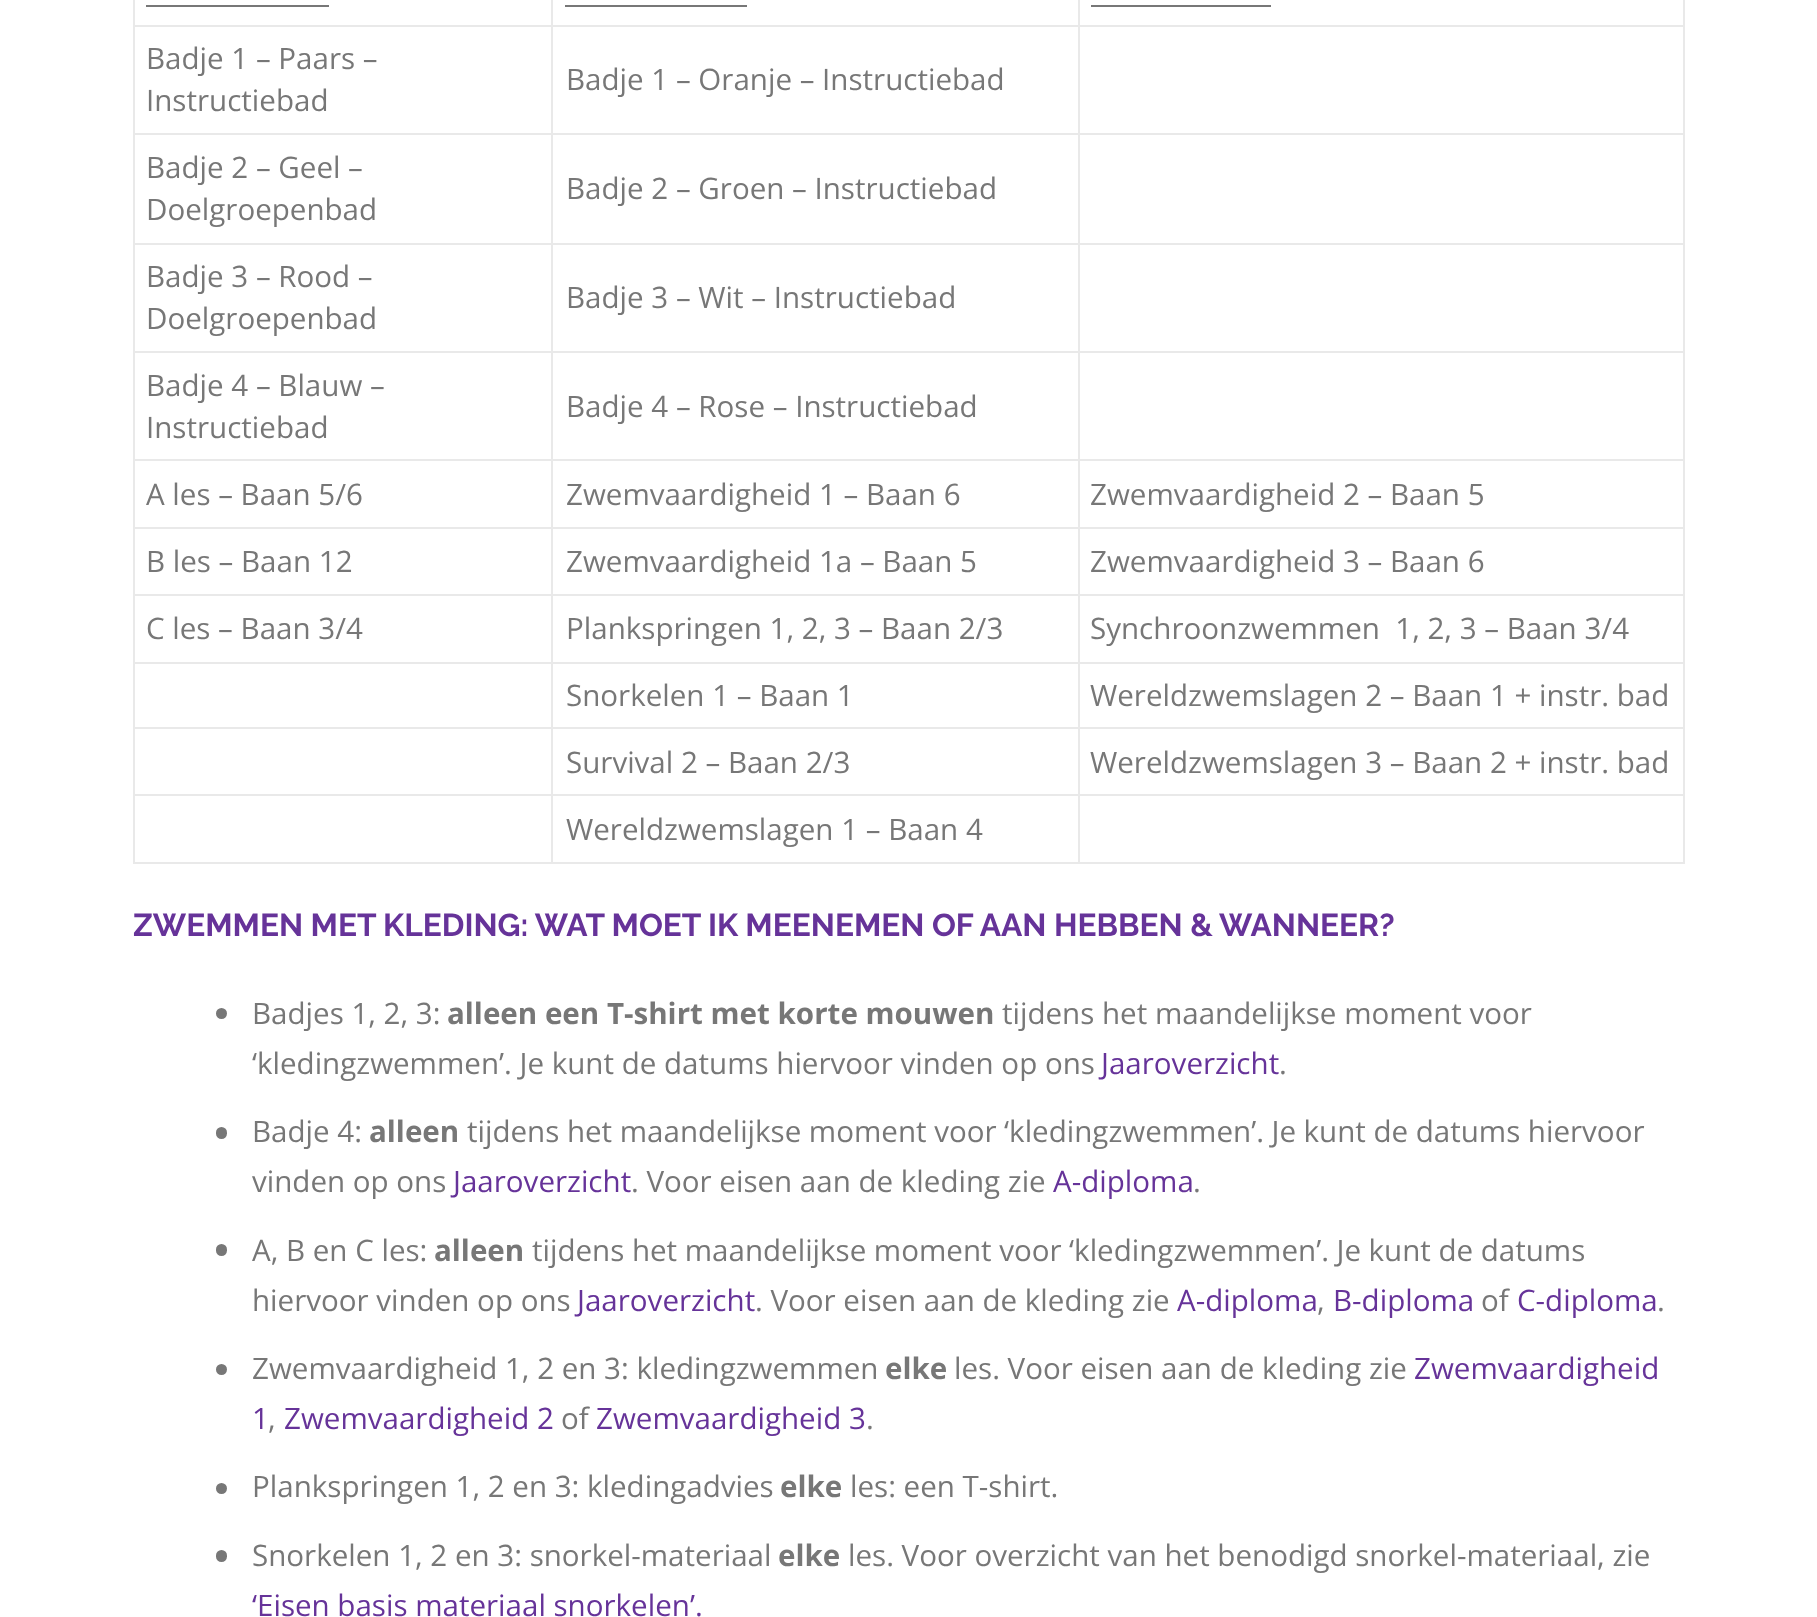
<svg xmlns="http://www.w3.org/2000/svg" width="1817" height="1617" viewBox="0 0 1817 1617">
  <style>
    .t1 { font: 29.55px Open Sans; fill: #777; }
    .t2 { font: bold 31.65px Raleway; fill: #639; }
    .t3 { font: bold 29.55px Open Sans; fill: #777; }
    .t4 { font: 29.55px Open Sans; fill: #639; }
  </style>
  <rect width="100%" height="100%" fill="#fff"/>
  <rect x="1683" y="0" width="2" height="864" fill="#e9e9e9"/>
  <rect x="133" y="862" width="1552" height="2" fill="#e9e9e9"/>
  <rect x="133" y="0" width="2" height="864" fill="#e9e9e9"/>
  <rect x="146" y="5" width="183" height="2" fill="#777"/>
  <rect x="1078" y="25" width="607" height="2" fill="#e9e9e9"/>
  <rect x="1078" y="133" width="607" height="2" fill="#e9e9e9"/>
  <rect x="1078" y="243" width="607" height="2" fill="#e9e9e9"/>
  <rect x="1078" y="351" width="607" height="2" fill="#e9e9e9"/>
  <rect x="1078" y="459" width="607" height="2" fill="#e9e9e9"/>
  <rect x="1078" y="527" width="607" height="2" fill="#e9e9e9"/>
  <rect x="1078" y="594" width="607" height="2" fill="#e9e9e9"/>
  <rect x="1078" y="662" width="607" height="2" fill="#e9e9e9"/>
  <rect x="1078" y="727" width="607" height="2" fill="#e9e9e9"/>
  <rect x="1078" y="794" width="607" height="2" fill="#e9e9e9"/>
  <rect x="1078" y="794" width="2" height="70" fill="#e9e9e9"/>
  <rect x="551" y="794" width="529" height="2" fill="#e9e9e9"/>
  <rect x="1078" y="727" width="2" height="70" fill="#e9e9e9"/>
  <rect x="551" y="727" width="529" height="2" fill="#e9e9e9"/>
  <rect x="1078" y="662" width="2" height="67" fill="#e9e9e9"/>
  <rect x="551" y="662" width="529" height="2" fill="#e9e9e9"/>
  <rect x="1078" y="594" width="2" height="70" fill="#e9e9e9"/>
  <rect x="551" y="594" width="529" height="2" fill="#e9e9e9"/>
  <rect x="1078" y="527" width="2" height="69" fill="#e9e9e9"/>
  <rect x="551" y="527" width="529" height="2" fill="#e9e9e9"/>
  <rect x="1078" y="459" width="2" height="70" fill="#e9e9e9"/>
  <rect x="551" y="459" width="529" height="2" fill="#e9e9e9"/>
  <rect x="1078" y="351" width="2" height="110" fill="#e9e9e9"/>
  <rect x="551" y="351" width="529" height="2" fill="#e9e9e9"/>
  <rect x="1078" y="243" width="2" height="110" fill="#e9e9e9"/>
  <rect x="551" y="243" width="529" height="2" fill="#e9e9e9"/>
  <rect x="1078" y="133" width="2" height="112" fill="#e9e9e9"/>
  <rect x="551" y="133" width="529" height="2" fill="#e9e9e9"/>
  <rect x="1078" y="25" width="2" height="110" fill="#e9e9e9"/>
  <rect x="551" y="25" width="529" height="2" fill="#e9e9e9"/>
  <rect x="551" y="794" width="2" height="70" fill="#e9e9e9"/>
  <rect x="133" y="794" width="421" height="2" fill="#e9e9e9"/>
  <rect x="551" y="727" width="2" height="70" fill="#e9e9e9"/>
  <rect x="133" y="727" width="421" height="2" fill="#e9e9e9"/>
  <rect x="551" y="662" width="2" height="67" fill="#e9e9e9"/>
  <rect x="133" y="662" width="421" height="2" fill="#e9e9e9"/>
  <rect x="551" y="594" width="2" height="70" fill="#e9e9e9"/>
  <rect x="133" y="594" width="421" height="2" fill="#e9e9e9"/>
  <rect x="551" y="527" width="2" height="69" fill="#e9e9e9"/>
  <rect x="133" y="527" width="421" height="2" fill="#e9e9e9"/>
  <rect x="551" y="459" width="2" height="70" fill="#e9e9e9"/>
  <rect x="133" y="459" width="421" height="2" fill="#e9e9e9"/>
  <rect x="551" y="351" width="2" height="110" fill="#e9e9e9"/>
  <rect x="133" y="351" width="421" height="2" fill="#e9e9e9"/>
  <rect x="551" y="243" width="2" height="110" fill="#e9e9e9"/>
  <rect x="133" y="243" width="421" height="2" fill="#e9e9e9"/>
  <rect x="551" y="133" width="2" height="112" fill="#e9e9e9"/>
  <rect x="133" y="133" width="421" height="2" fill="#e9e9e9"/>
  <rect x="551" y="25" width="2" height="110" fill="#e9e9e9"/>
  <rect x="133" y="25" width="421" height="2" fill="#e9e9e9"/>
  <rect x="551" y="0" width="2" height="27" fill="#e9e9e9"/>
  <rect x="565" y="5" width="182" height="2" fill="#777"/>
  <rect x="1078" y="0" width="2" height="27" fill="#e9e9e9"/>
  <rect x="1091" y="5" width="180" height="2" fill="#777"/>
  <text x="146" y="69" class="t1">Badje 1 – Paars –</text>
  <text x="146" y="111" class="t1">Instructiebad</text>
  <text x="566" y="90" class="t1">Badje 1 – Oranje – Instructiebad</text>
  <text x="146" y="178" class="t1">Badje 2 – Geel –</text>
  <text x="146" y="220" class="t1">Doelgroepenbad</text>
  <text x="566" y="199" class="t1">Badje 2 – Groen – Instructiebad</text>
  <text x="146" y="287" class="t1">Badje 3 – Rood –</text>
  <text x="146" y="329" class="t1">Doelgroepenbad</text>
  <text x="566" y="308" class="t1">Badje 3 – Wit – Instructiebad</text>
  <text x="146" y="396" class="t1">Badje 4 – Blauw –</text>
  <text x="146" y="438" class="t1">Instructiebad</text>
  <text x="566" y="417" class="t1">Badje 4 – Rose – Instructiebad</text>
  <text x="146" y="505" class="t1">A les – Baan 5/6</text>
  <text x="566" y="505" class="t1">Zwemvaardigheid 1 – Baan 6</text>
  <text x="1090" y="505" class="t1">Zwemvaardigheid 2 – Baan 5</text>
  <text x="146" y="572" class="t1">B les – Baan 12</text>
  <text x="566" y="572" class="t1">Zwemvaardigheid 1a – Baan 5</text>
  <text x="1090" y="572" class="t1">Zwemvaardigheid 3 – Baan 6</text>
  <text x="146" y="639" class="t1">C les – Baan 3/4</text>
  <text x="566" y="639" class="t1">Plankspringen 1, 2, 3 – Baan 2/3</text>
  <text x="1090" y="639" class="t1" xml:space="preserve">Synchroonzwemmen  1, 2, 3 – Baan 3/4</text>
  <text x="566" y="706" class="t1">Snorkelen 1 – Baan 1</text>
  <text x="1090" y="706" class="t1">Wereldzwemslagen 2 – Baan 1 + instr. bad</text>
  <text x="566" y="773" class="t1">Survival 2 – Baan 2/3</text>
  <text x="1090" y="773" class="t1">Wereldzwemslagen 3 – Baan 2 + instr. bad</text>
  <text x="566" y="840" class="t1">Wereldzwemslagen 1 – Baan 4</text>
  <text x="133" y="936" word-spacing="-0.1" class="t2">ZWEMMEN MET KLEDING: WAT MOET IK MEENEMEN OF AAN HEBBEN &amp; WANNEER?</text>
  <circle cx="221.5" cy="1013.5" r="5.5" fill="#777"/>
  <text x="252" y="1024" class="t1">Badjes 1, 2, 3:</text>
  <text x="447" y="1024" class="t3">alleen een T-shirt met korte mouwen</text>
  <text x="1002" y="1024" class="t1">tijdens het maandelijkse moment voor</text>
  <text x="252" y="1074" class="t1">‘kledingzwemmen’. Je kunt de datums hiervoor vinden op ons</text>
  <text x="1101" y="1074" class="t4">Jaaroverzicht</text>
  <text x="1279" y="1074" class="t1">.</text>
  <rect x="216" y="1127" width="11" height="12" rx="5.5" fill="#777"/>
  <text x="252" y="1142" class="t1">Badje 4:</text>
  <text x="369" y="1142" class="t3">alleen</text>
  <text x="467" y="1142" word-spacing="-0.1" class="t1">tijdens het maandelijkse moment voor ‘kledingzwemmen’. Je kunt de datums hiervoor</text>
  <text x="252" y="1192" class="t1">vinden op ons</text>
  <text x="453" y="1192" class="t4">Jaaroverzicht</text>
  <text x="631" y="1192" class="t1">. Voor eisen aan de kleding zie</text>
  <text x="1053" y="1192" class="t4">A-diploma</text>
  <text x="1193" y="1192" class="t1">.</text>
  <rect x="216" y="1244" width="11" height="12" rx="5.5" fill="#777"/>
  <text x="252" y="1261" class="t1">A, B en C les:</text>
  <text x="434" y="1261" class="t3">alleen</text>
  <text x="532" y="1261" word-spacing="-0.1" class="t1">tijdens het maandelijkse moment voor ‘kledingzwemmen’. Je kunt de datums</text>
  <text x="252" y="1311" class="t1">hiervoor vinden op ons</text>
  <text x="577" y="1311" class="t4">Jaaroverzicht</text>
  <text x="755" y="1311" class="t1">. Voor eisen aan de kleding zie</text>
  <text x="1177" y="1311" class="t4">A-diploma</text>
  <text x="1317" y="1311" class="t1">,</text>
  <text x="1333" y="1311" class="t4">B-diploma</text>
  <text x="1481" y="1311" class="t1">of</text>
  <text x="1517" y="1311" class="t4">C-diploma</text>
  <text x="1657" y="1311" class="t1">.</text>
  <circle cx="221.5" cy="1369.5" r="5.5" fill="#777"/>
  <text x="252" y="1379" class="t1">Zwemvaardigheid 1, 2 en 3: kledingzwemmen</text>
  <text x="885" y="1379" class="t3">elke</text>
  <text x="954" y="1379" class="t1">les. Voor eisen aan de kleding zie</text>
  <text x="1414" y="1379" class="t4">Zwemvaardigheid</text>
  <text x="252" y="1429" class="t4">1</text>
  <text x="268" y="1429" class="t1">,</text>
  <text x="284" y="1429" class="t4">Zwemvaardigheid 2</text>
  <text x="561" y="1429" class="t1">of</text>
  <text x="596" y="1429" class="t4">Zwemvaardigheid 3</text>
  <text x="866" y="1429" class="t1">.</text>
  <circle cx="221.5" cy="1488.5" r="5.5" fill="#777"/>
  <text x="252" y="1497" class="t1">Plankspringen 1, 2 en 3: kledingadvies</text>
  <text x="780" y="1497" class="t3">elke</text>
  <text x="850" y="1497" class="t1">les: een T-shirt.</text>
  <rect x="216" y="1550" width="11" height="12" rx="5.5" fill="#777"/>
  <text x="252" y="1566" class="t1">Snorkelen 1, 2 en 3: snorkel-materiaal</text>
  <text x="778" y="1566" class="t3">elke</text>
  <text x="848" y="1566" class="t1">les. Voor overzicht van het benodigd snorkel-materiaal, zie</text>
  <text x="252" y="1616" class="t4">‘Eisen basis materiaal snorkelen’.</text>
</svg>
